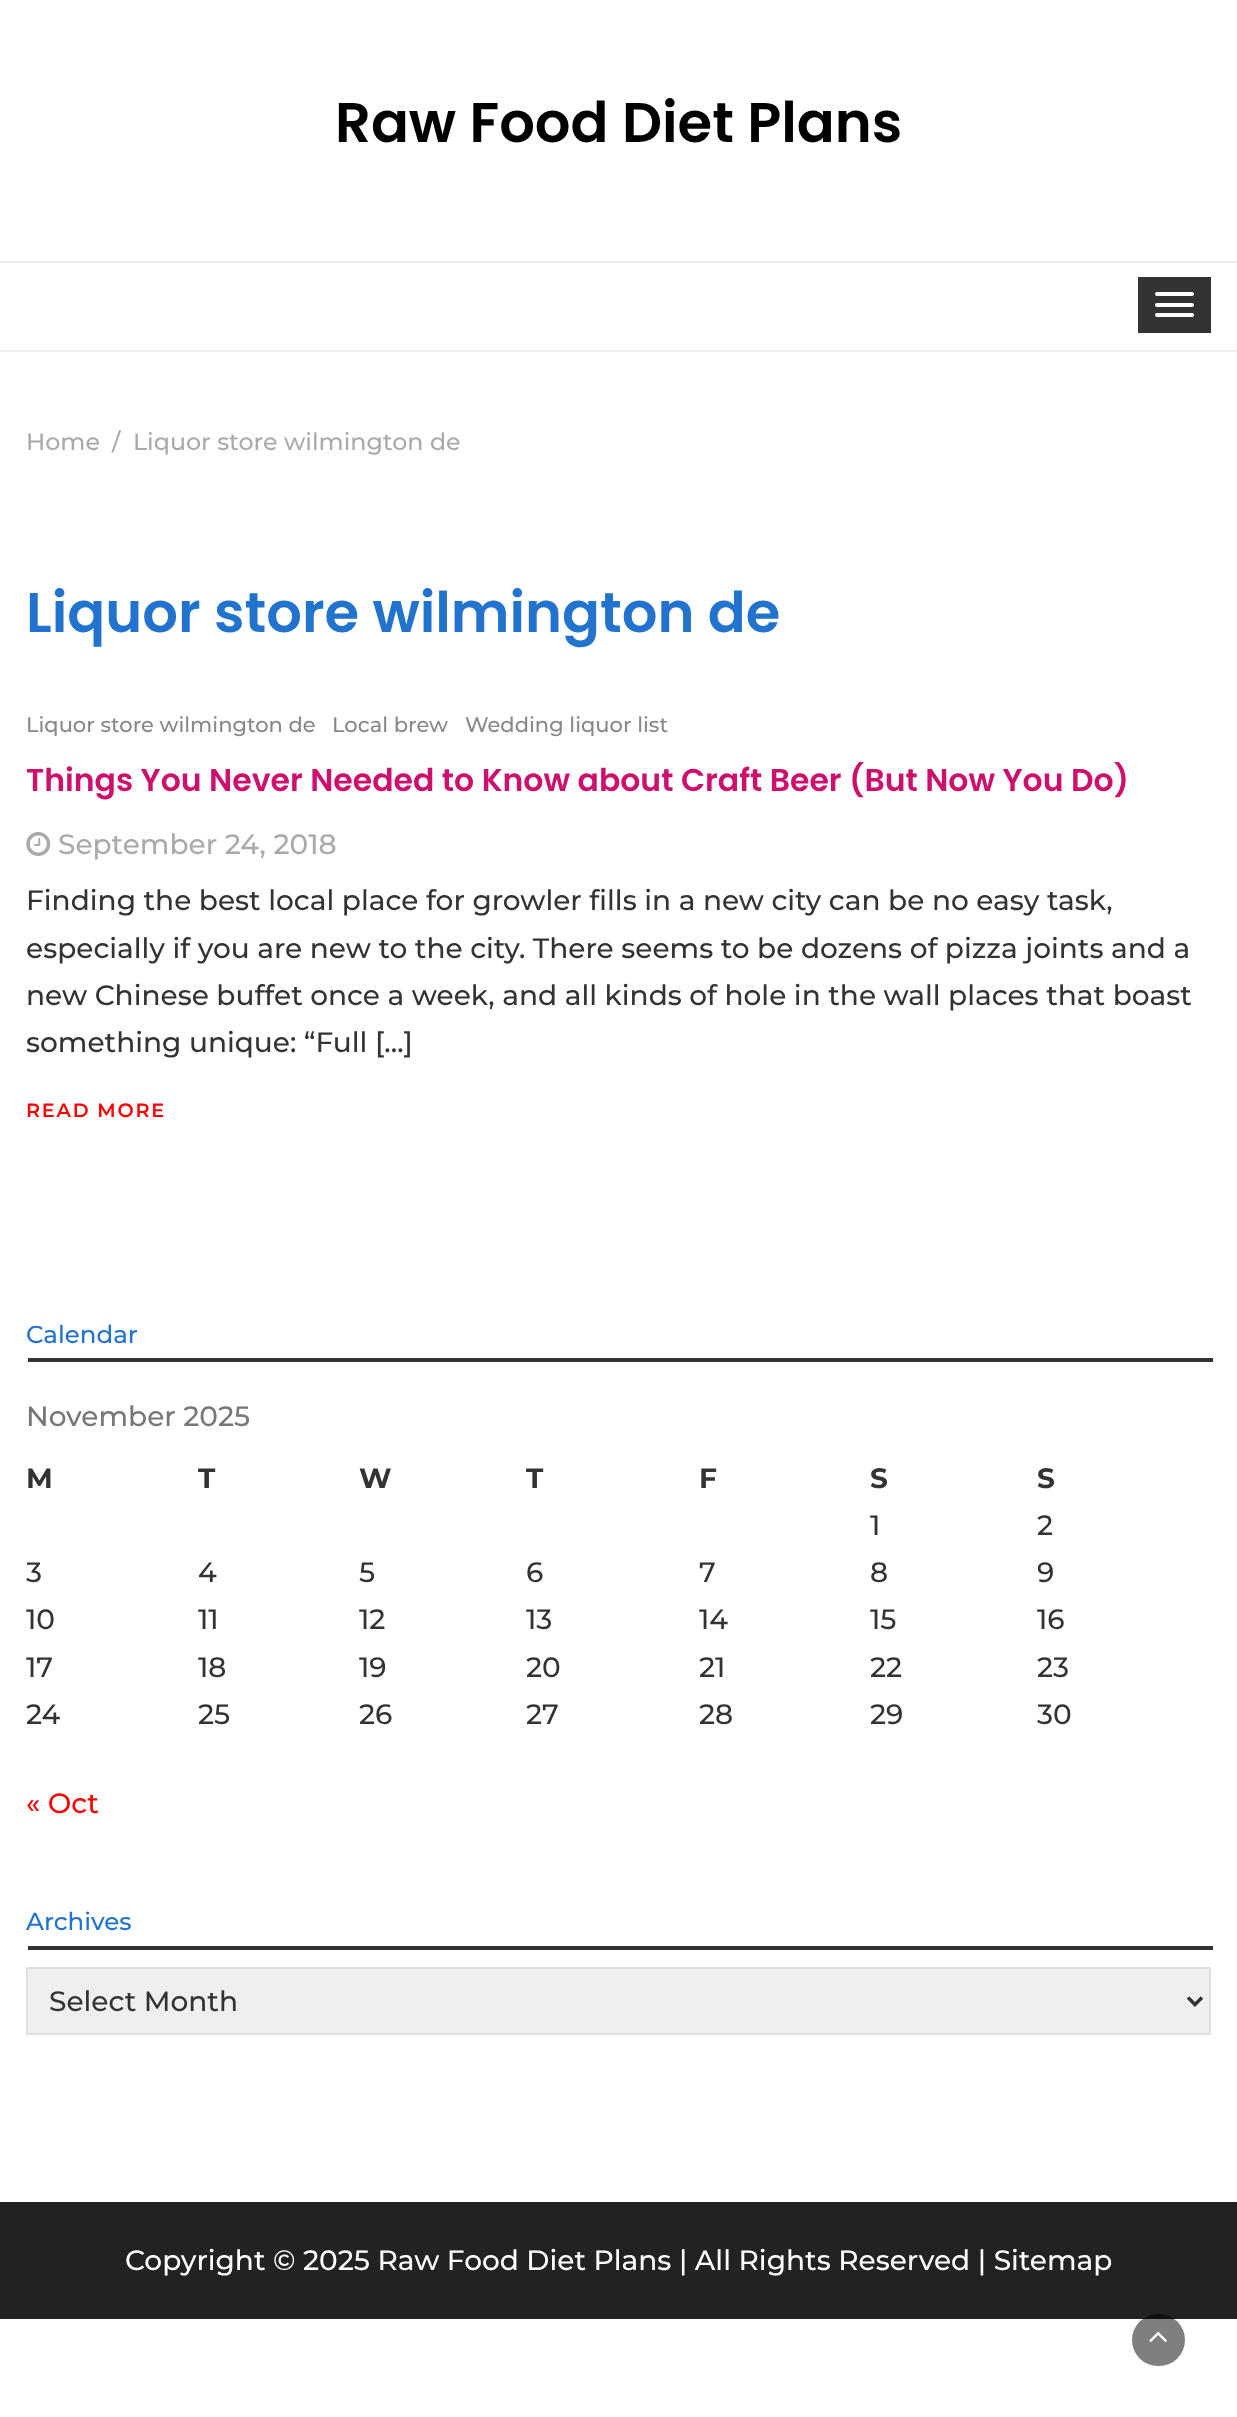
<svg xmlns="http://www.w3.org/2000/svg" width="1237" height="2417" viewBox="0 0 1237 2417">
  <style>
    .t1 { font: 600 56px Poppins; fill: #000; }
    .t2 { font: 500 23.75px Montserrat; fill: #aaa; }
    .t3 { font: 600 56px Poppins; fill: #2173ce; }
    .t4 { font: 500 21px Montserrat; fill: #888; }
    .t5 { font: 600 31.5px Poppins; fill: #ce106d; }
    .t6 { font: 500 28px Montserrat; fill: #aaa; }
    .t7 { font: 500 28px Montserrat; fill: #333; }
    .t8 { font: 600 19.25px Montserrat; letter-spacing: 1.75px; fill: #f00; }
    .t9 { font: 500 24.5px Montserrat; fill: #2173ce; }
    .t10 { font: 500 28px Montserrat; fill: #777; }
    .t11 { font: bold 28px Montserrat; fill: #333; }
    .t12 { font: 500 28px Montserrat; fill: #f00; }
    .t13 { font: 500 28px Montserrat; fill: #fff; }
  </style>
  <rect width="100%" height="100%" fill="#fff"/>
  <text x="335" y="142" class="t1">Raw Food Diet Plans</text>
  <rect x="0" y="261" width="1237" height="2" fill="#eee"/>
  <rect x="0" y="350" width="1237" height="2" fill="#eee"/>
  <rect x="1138" y="277" width="73" height="56" fill="#333"/>
  <rect x="1155" y="292" width="39" height="4" rx="2" fill="#fff"/>
  <rect x="1155" y="303" width="39" height="4" rx="2" fill="#fff"/>
  <rect x="1155" y="313" width="39" height="4" rx="2" fill="#fff"/>
  <text x="26" y="450" class="t2">Home</text>
  <text x="112" y="450" class="t2">/</text>
  <text x="133" y="450" class="t2">Liquor store wilmington de</text>
  <text x="26" y="632" class="t3">Liquor store wilmington de</text>
  <text x="26" y="732" class="t4">Liquor store wilmington de</text>
  <text x="332" y="732" class="t4">Local brew</text>
  <text x="465" y="732" class="t4">Wedding liquor list</text>
  <text x="26" y="791" class="t5">Things You Never Needed to Know about Craft Beer (But Now You Do)</text>
  <image x="26" y="832" width="25" height="24" href="images/1.png"/>
  <text x="58" y="854" class="t6">September 24, 2018</text>
  <text x="26" y="910" class="t7">Finding the best local place for growler fills in a new city can be no easy task,</text>
  <text x="26" y="958" class="t7">especially if you are new to the city. There seems to be dozens of pizza joints and a</text>
  <text x="26" y="1005" class="t7">new Chinese buffet once a week, and all kinds of hole in the wall places that boast</text>
  <text x="26" y="1052" class="t7">something unique: “Full […]</text>
  <text x="26" y="1117" class="t8">READ MORE</text>
  <rect x="26" y="1360" width="2" height="2" fill="#eee"/>
  <text x="26" y="1343" class="t9">Calendar</text>
  <rect x="28" y="1358" width="1185" height="4" fill="#333"/>
  <text x="26" y="1426" class="t10">November 2025</text>
  <text x="26" y="1488" class="t11">M</text>
  <text x="198" y="1488" class="t11">T</text>
  <text x="359" y="1488" class="t11">W</text>
  <text x="526" y="1488" class="t11">T</text>
  <text x="699" y="1488" class="t11">F</text>
  <text x="870" y="1488" class="t11">S</text>
  <text x="1037" y="1488" class="t11">S</text>
  <text x="870" y="1535" class="t7">1</text>
  <text x="1037" y="1535" class="t7">2</text>
  <text x="26" y="1582" class="t7">3</text>
  <text x="198" y="1582" class="t7">4</text>
  <text x="359" y="1582" class="t7">5</text>
  <text x="526" y="1582" class="t7">6</text>
  <text x="699" y="1582" class="t7">7</text>
  <text x="870" y="1582" class="t7">8</text>
  <text x="1037" y="1582" class="t7">9</text>
  <text x="26" y="1629" class="t7">10</text>
  <text x="198" y="1629" class="t7">11</text>
  <text x="359" y="1629" class="t7">12</text>
  <text x="526" y="1629" class="t7">13</text>
  <text x="699" y="1629" class="t7">14</text>
  <text x="870" y="1629" class="t7">15</text>
  <text x="1037" y="1629" class="t7">16</text>
  <text x="26" y="1677" class="t7">17</text>
  <text x="198" y="1677" class="t7">18</text>
  <text x="359" y="1677" class="t7">19</text>
  <text x="526" y="1677" class="t7">20</text>
  <text x="699" y="1677" class="t7">21</text>
  <text x="870" y="1677" class="t7">22</text>
  <text x="1037" y="1677" class="t7">23</text>
  <text x="26" y="1724" class="t7">24</text>
  <text x="198" y="1724" class="t7">25</text>
  <text x="359" y="1724" class="t7">26</text>
  <text x="526" y="1724" class="t7">27</text>
  <text x="699" y="1724" class="t7">28</text>
  <text x="870" y="1724" class="t7">29</text>
  <text x="1037" y="1724" class="t7">30</text>
  <text x="26" y="1813" class="t12">« Oct</text>
  <rect x="26" y="1948" width="2" height="2" fill="#eee"/>
  <text x="26" y="1930" class="t9">Archives</text>
  <rect x="28" y="1946" width="1185" height="4" fill="#333"/>
  <rect x="27" y="1968" width="1183" height="66" fill="#efefef" stroke="#e0e0e0" stroke-width="2"/>
  <path d="M1188 1997.5L1195 2004.5L1202 1997.5" fill="none" stroke="#333" stroke-width="3.5"/>
  <text x="49" y="2011" class="t7">Select Month</text>
  <rect x="0" y="2202" width="1237" height="117" fill="#222"/>
  <text x="125" y="2270" class="t13">Copyright © 2025 Raw Food Diet Plans | All Rights Reserved | Sitemap</text>
  <rect x="1132" y="2314" width="53" height="52" rx="26" fill="#00000080"/>
  <image x="1149" y="2331" width="18" height="11" href="images/2.png"/>
</svg>
